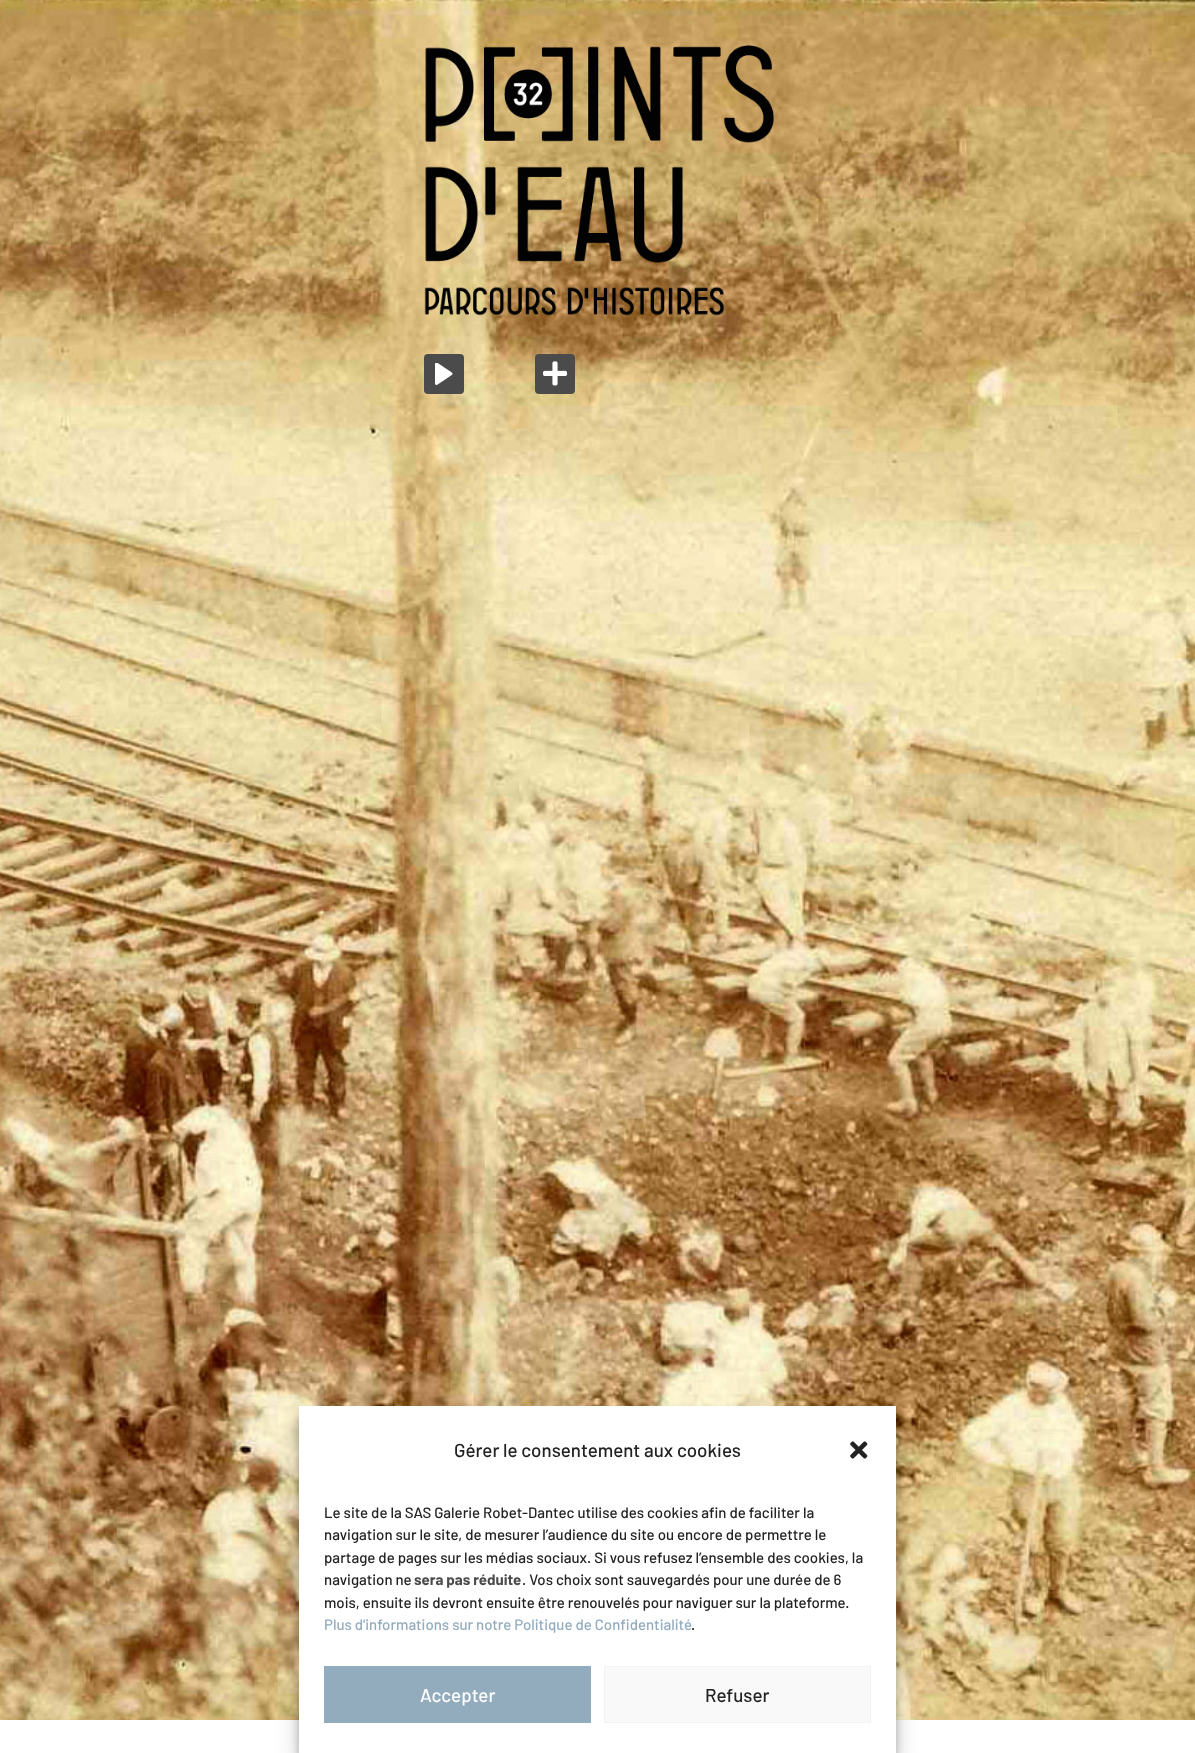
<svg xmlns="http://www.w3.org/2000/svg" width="1195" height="1753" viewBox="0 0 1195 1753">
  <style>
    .t1 { font: 500 18.75px Barlow; fill: #222; }
    .t2 { font: 500 15px Barlow; fill: #222; }
    .t3 { font: bold 15px Barlow; fill: #4b4b4b; }
    .t4 { font: 500 15px Barlow; fill: #92abbd; }
    .t5 { font: 500 18.75px Barlow; fill: #fff; }
  </style>
  <rect width="100%" height="100%" fill="#fff"/>
  <image x="0" y="0" width="1195" height="1720" href="images/1.png"/>
  <image x="424" y="45" width="350" height="271" href="images/2.png"/>
  <rect x="424" y="354" width="40" height="40" rx="4" fill="#4b4b4b"/>
  <image x="435" y="363" width="18" height="22" href="images/3.png"/>
  <rect x="535" y="354" width="40" height="40" rx="4" fill="#4b4b4b"/>
  <image x="542" y="361" width="26" height="25" href="images/4.png"/>
  <rect x="299" y="1414" width="597" height="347" fill="#0000003b" filter="blur(4px)"/>
  <rect x="299" y="1419" width="597" height="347" fill="#00000030" filter="blur(12.5px)"/>
  <rect x="299" y="1406" width="597" height="347" fill="#fff"/>
  <text x="454" y="1457" class="t1">Gérer le consentement aux cookies</text>
  <image x="850" y="1441" width="18" height="18" href="images/5.png"/>
  <text x="324" y="1518" class="t2">Le site de la SAS Galerie Robet-Dantec utilise des cookies afin de faciliter la</text>
  <text x="324" y="1540" class="t2">navigation sur le site, de mesurer l’audience du site ou encore de permettre le</text>
  <text x="324" y="1563" class="t2">partage de pages sur les médias sociaux. Si vous refusez l’ensemble des cookies, la</text>
  <text x="324" y="1585" class="t2">navigation ne</text>
  <text x="414" y="1585" class="t3">sera pas réduite</text>
  <text x="522" y="1585" class="t2">. Vos choix sont sauvegardés pour une durée de 6</text>
  <text x="324" y="1608" class="t2">mois, ensuite ils devront ensuite être renouvelés pour naviguer sur la plateforme.</text>
  <text x="324" y="1630" class="t4">Plus d'informations sur notre Politique de Confidentialité</text>
  <text x="691" y="1630" class="t2">.</text>
  <rect x="324" y="1666" width="267" height="57" fill="#92abbd"/>
  <text x="420" y="1702" class="t5">Accepter</text>
  <rect x="604.5" y="1666.5" width="266" height="56" fill="#f9f9f9" stroke="#f2f2f2"/>
  <text x="705" y="1702" class="t1">Refuser</text>
</svg>
